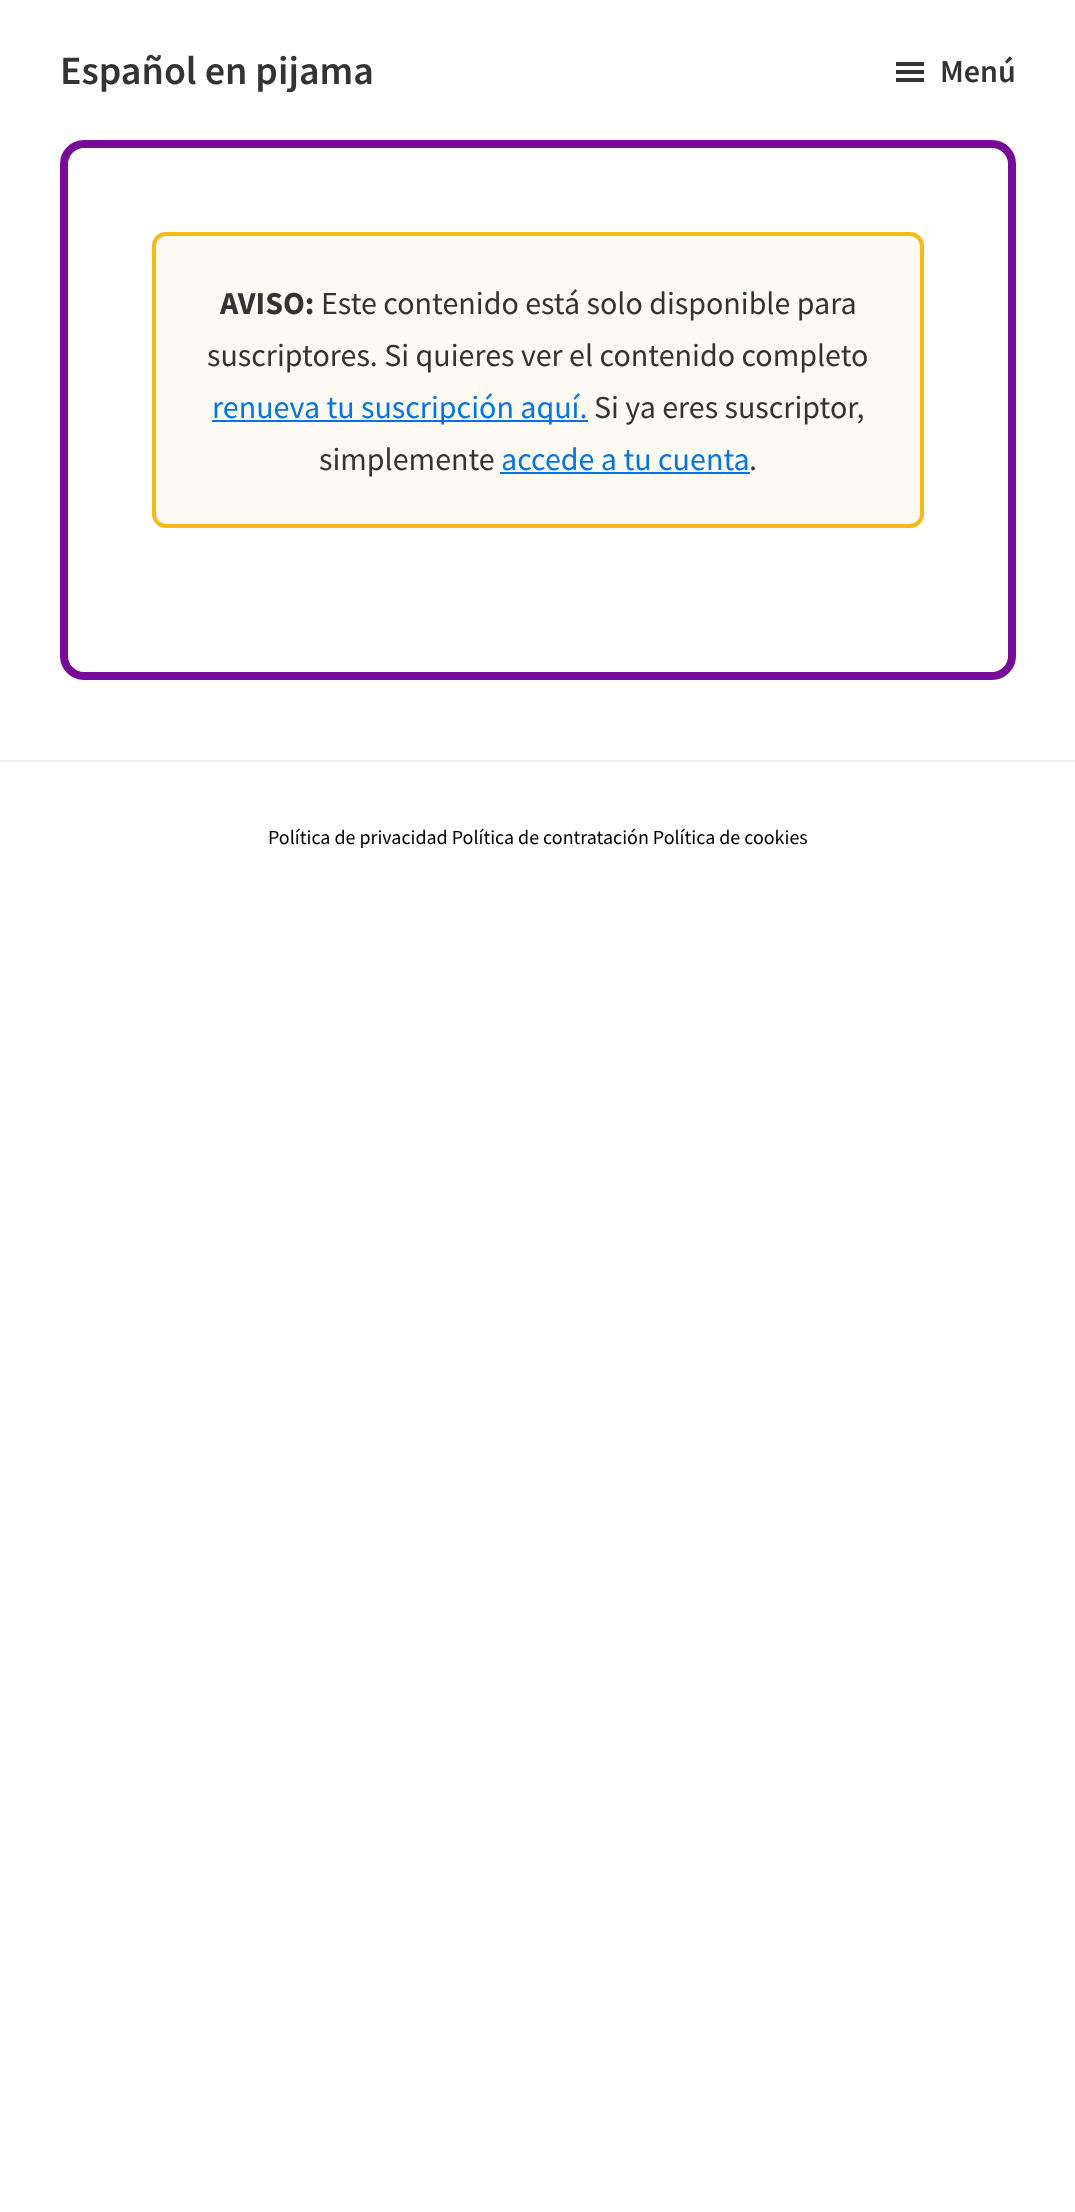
<svg xmlns="http://www.w3.org/2000/svg" width="1075" height="2212" viewBox="0 0 1075 2212">
  <style>
    .t1 { font: 600 40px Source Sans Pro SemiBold; fill: #333; }
    .t2 { font: 600 32px Source Sans Pro SemiBold; fill: #333; }
    .t3 { font: bold 32px Source Sans Pro; fill: #333; }
    .t4 { font: 32px Source Sans Pro; fill: #333; }
    .t5 { font: 32px Source Sans Pro; fill: #0073e5; }
    .t6 { font: 20px Source Sans Pro; fill: #000; }
  </style>
  <rect width="100%" height="100%" fill="#fff"/>
  <text x="60" y="84" class="t1">Español en pijama</text>
  <image x="896" y="62" width="28" height="20" href="images/1.png"/>
  <text x="940" y="82" class="t2">Menú</text>
  <rect x="64" y="144" width="948" height="532" rx="20" fill="none" stroke="#770a96" stroke-width="8"/>
  <rect x="154" y="234" width="768" height="292" rx="12" fill="#fdfaf3" stroke="#fab91b" stroke-width="4"/>
  <text x="220" y="314" class="t3">AVISO:</text>
  <text x="321" y="314" class="t4">Este contenido está solo disponible para</text>
  <text x="207" y="366" class="t4">suscriptores. Si quieres ver el contenido completo</text>
  <rect x="212" y="420" width="376" height="2" fill="#0073e5"/>
  <text x="212" y="418" class="t5">renueva tu suscripción aquí.</text>
  <text x="594" y="418" class="t4">Si ya eres suscriptor,</text>
  <text x="319" y="470" class="t4">simplemente</text>
  <text x="501" y="470" class="t5">accede a tu cuenta</text>
  <rect x="500" y="472" width="250" height="2" fill="#0073e5"/>
  <text x="749" y="470" class="t4">.</text>
  <rect x="0" y="760" width="1075" height="2" fill="#eee"/>
  <text x="268" y="844" class="t6">Política de privacidad Política de contratación Política de cookies</text>
</svg>
